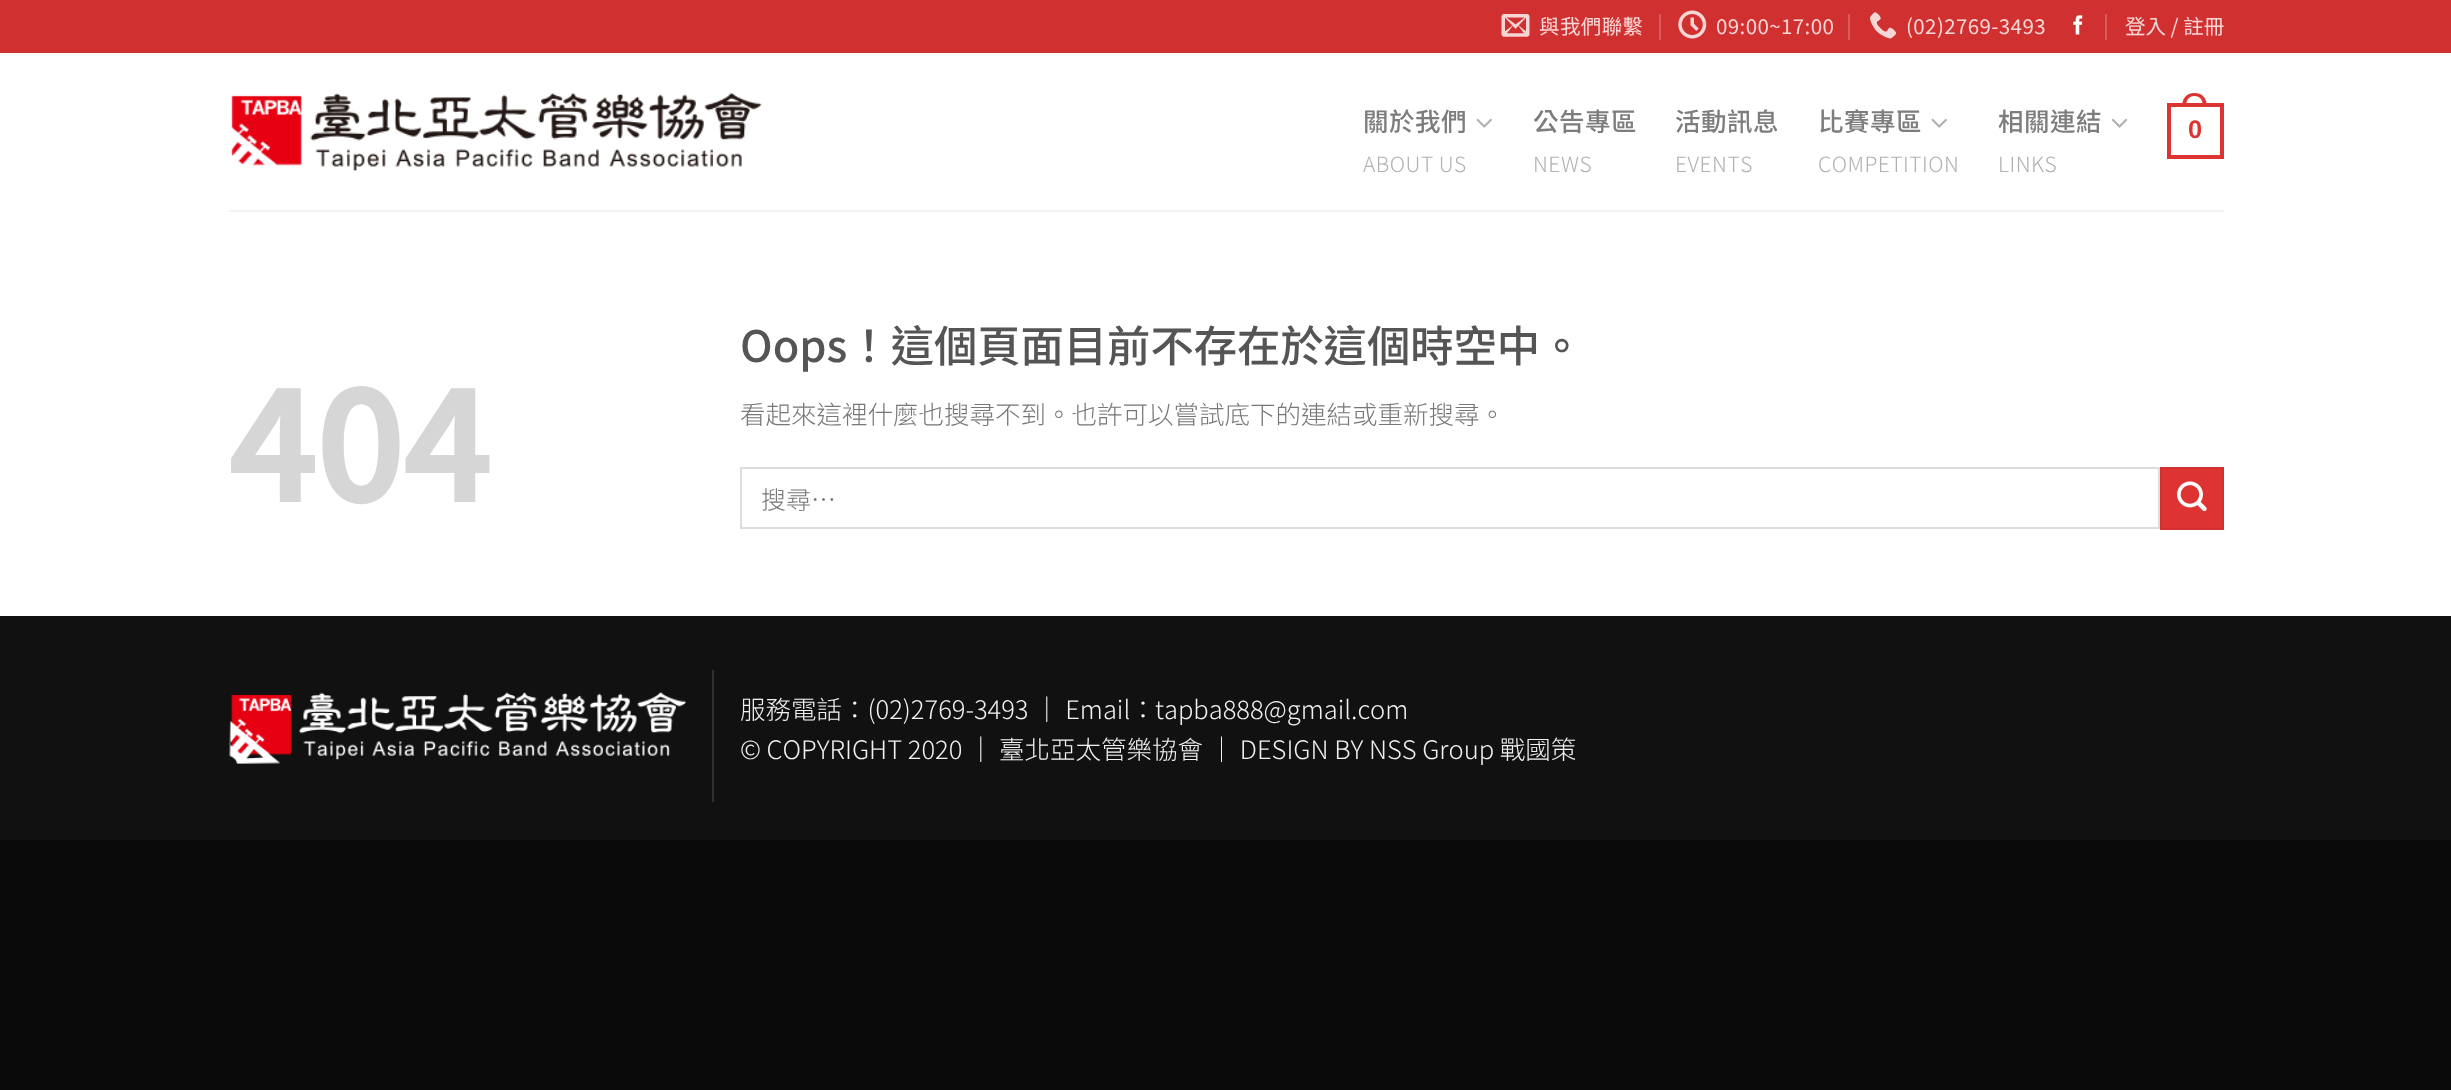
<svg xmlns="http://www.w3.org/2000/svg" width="2451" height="1090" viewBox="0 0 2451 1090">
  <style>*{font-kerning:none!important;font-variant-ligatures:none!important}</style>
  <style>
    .t1 { font: 20.5px Noto Sans TC; letter-spacing: 0.4px; fill: #f6d6d6; }
    .t2 { font: 20.5px Noto Sans TC; fill: #f6d6d6; }
    .t3 { font: 500 25.5px Noto Sans TC; letter-spacing: 0.5px; fill: #7d7d7d; }
    .t4 { font: 300 21px Noto Sans TC; letter-spacing: 0.5px; fill: #b1b1b1; }
    .t5 { font: bold 25.5px Liberation Sans; letter-spacing: 0.5px; fill: #d33; }
    .t6 { font: bold 153px Noto Sans TC; fill: #d6d6d6; }
    .t7 { font: 500 43.3px Noto Sans TC; fill: #555; }
    .t8 { font: 300 25.5px Noto Sans TC; fill: #777; }
    .t9 { font: 300 25px Noto Sans TC; fill: #777; }
    .t10 { font: 300 25.5px Noto Sans TC; fill: #f1f1f1; }
  </style>
  <rect width="100%" height="100%" fill="#0a0a0a"/>
  <rect x="0" y="53" width="2451" height="563" fill="#fff"/>
  <rect x="0" y="0" width="2451" height="53" fill="#d13030"/>
  <image x="1501" y="14" width="29" height="23" href="images/1.png"/>
  <text x="1539" y="34" class="t1">與我們聯繫</text>
  <rect x="1659" y="14" width="2" height="26" fill="#da5959"/>
  <image x="1678" y="10" width="29" height="29" href="images/2.png"/>
  <text x="1716" y="34" class="t1">09:00~17:00</text>
  <rect x="1848" y="14" width="2" height="26" fill="#da5959"/>
  <image x="1869" y="12" width="28" height="27" href="images/3.png"/>
  <text x="1906" y="34" class="t1">(02)2769-3493</text>
  <image x="2073" y="15" width="10" height="20" href="images/4.png"/>
  <rect x="2105" y="14" width="2" height="26" fill="#da5959"/>
  <text x="2125" y="34" class="t2">登入 / 註冊</text>
  <image x="231" y="93" width="531" height="79" href="images/5.png"/>
  <text x="1363" y="131" class="t3">關於我們</text>
  <image x="1476" y="118" width="16" height="10" href="images/6.png"/>
  <text x="1363" y="172" class="t4">ABOUT US</text>
  <text x="1533" y="131" class="t3">公告專區</text>
  <text x="1533" y="172" class="t4">NEWS</text>
  <text x="1675" y="131" class="t3">活動訊息</text>
  <text x="1675" y="172" class="t4">EVENTS</text>
  <text x="1818" y="131" class="t3">比賽專區</text>
  <image x="1931" y="118" width="16" height="10" href="images/6.png"/>
  <text x="1818" y="172" class="t4">COMPETITION</text>
  <text x="1998" y="131" class="t3">相關連結</text>
  <image x="2111" y="118" width="17" height="10" href="images/7.png"/>
  <text x="1998" y="172" class="t4">LINKS</text>
  <rect x="2169" y="105" width="53" height="52" fill="none" stroke="#d33" stroke-width="4"/>
  <path d="M2194.5 93C2203 93 2207 99 2207 107H2182C2182 99 2186 93 2194.5 93ZM2194.5 96C2201 96 2203 101 2203 107H2186C2186 101 2188 96 2194.5 96Z" fill="#d33" fill-rule="evenodd"/>
  <text x="2188" y="138" class="t5">0</text>
  <rect x="229" y="210" width="1995" height="2" fill="#f1f1f1"/>
  <text x="228" y="502" class="t6">404</text>
  <text x="740" y="362" class="t7">Oops！這個頁面目前不存在於這個時空中。</text>
  <text x="740" y="424" class="t8">看起來這裡什麼也搜尋不到。也許可以嘗試底下的連結或重新搜尋。</text>
  <rect x="741" y="468" width="1418" height="60" fill="none" stroke="#ddd" stroke-width="2"/>
  <text x="761" y="509" class="t9">搜尋…</text>
  <rect x="2161" y="468" width="62" height="61" fill="#d33" stroke="#d23030" stroke-width="2"/>
  <image x="2177" y="481" width="30" height="31" href="images/8.png"/>
  <rect x="0" y="616" width="2451" height="224" fill="#111"/>
  <rect x="712" y="670" width="2" height="132" fill="#2f2f2f"/>
  <image x="229" y="692" width="457" height="72" href="images/9.png"/>
  <text x="740" y="719" class="t10">服務電話：(02)2769-3493 │ Email：</text>
  <text x="1155" y="719" class="t10">tapba888@gmail.com</text>
  <text x="740" y="759" class="t10">© COPYRIGHT 2020 │ 臺北亞太管樂協會 │ DESIGN BY NSS Group 戰國策</text>
</svg>
